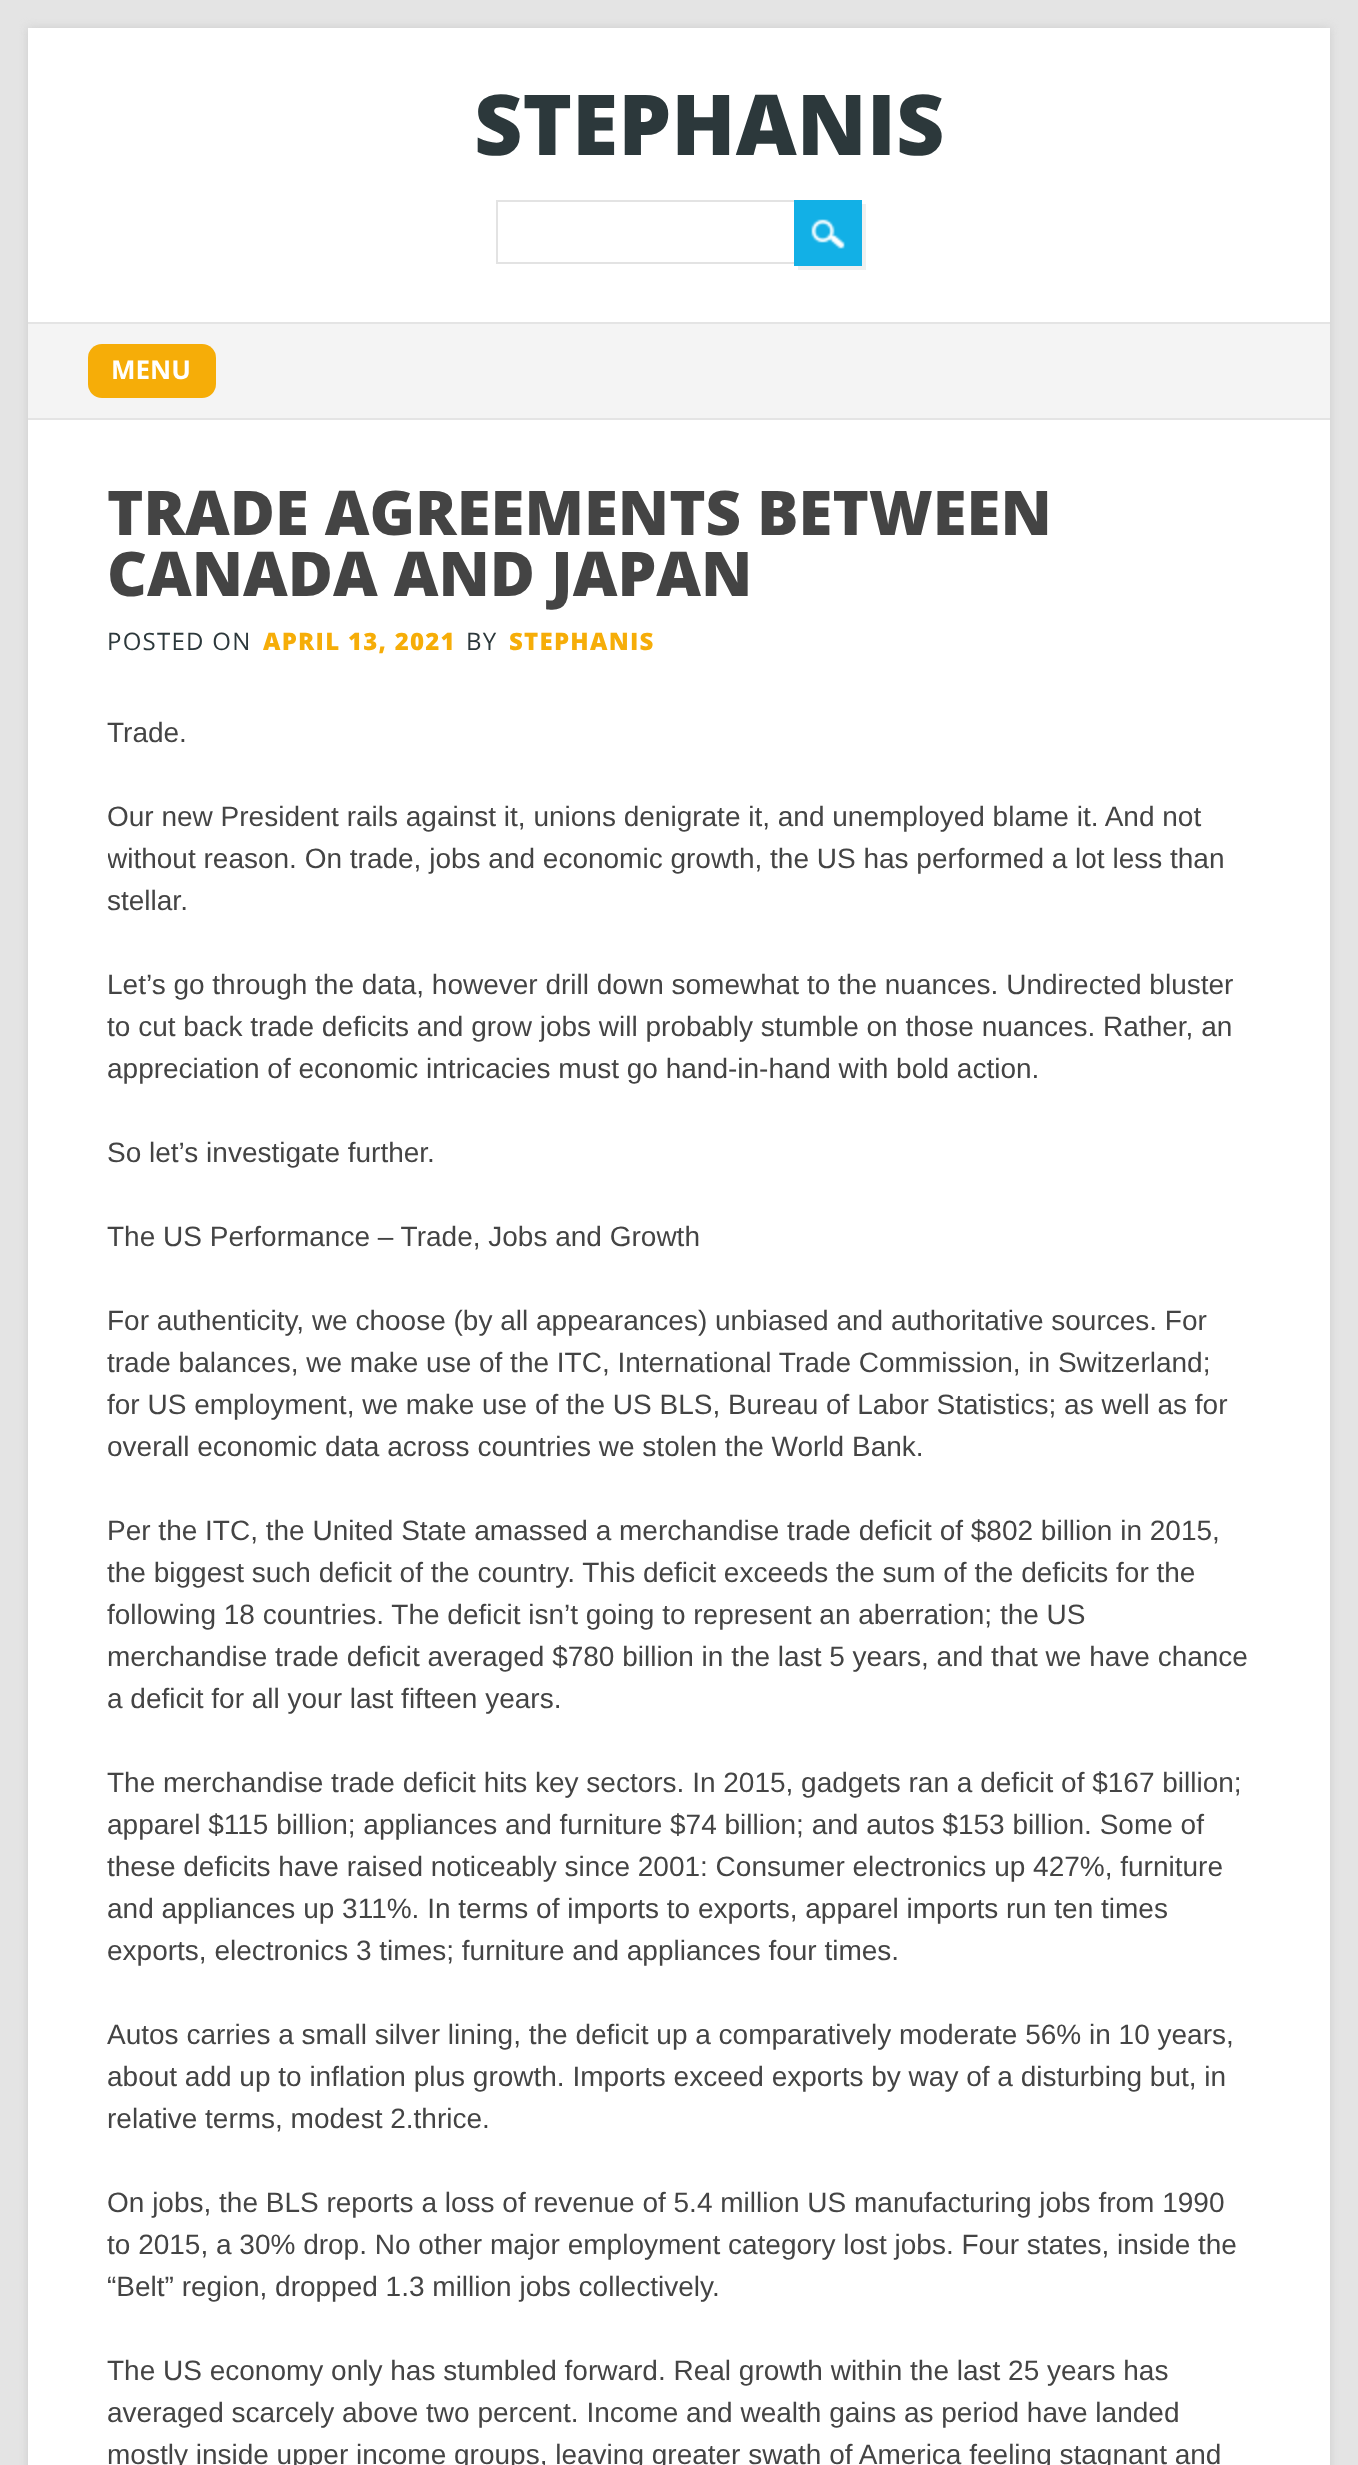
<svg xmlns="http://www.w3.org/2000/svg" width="1358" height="2465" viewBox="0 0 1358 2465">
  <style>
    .t1 { font: 800 84px Open Sans; fill: #2c383b; }
    .t2 { font: bold 26px Open Sans; fill: #fff; }
    .t3 { font: 800 61.6px Open Sans; fill: #444; }
    .t4 { font: 24px Open Sans; letter-spacing: 1.25px; fill: #2c383b; }
    .t5 { font: 800 24px Open Sans; letter-spacing: 1.25px; fill: #f6ad08; }
    .t6 { font: 28px Liberation Sans; fill: #444; }
  </style>
  <defs>
    <clipPath id="clip1"><rect x="108" y="712" width="1142" height="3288"/></clipPath>
  </defs>
  <rect width="100%" height="100%" fill="#e4e4e4"/>
  <rect x="28" y="28" width="1302" height="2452" fill="#cdcdcd" filter="blur(5px)"/>
  <rect x="28" y="28" width="1302" height="294" fill="#fff"/>
  <text x="474" y="155" class="t1">STEPHANIS</text>
  <rect x="497" y="201" width="298" height="62" fill="none" stroke="#e3e3e3" stroke-width="2"/>
  <path d="M798 266V270H866V204H862V266Z" fill="#f0f0f0"/>
  <rect x="794" y="200" width="68" height="66" fill="#12b0e6"/>
  <image x="811" y="219" width="34" height="30" href="images/1.png"/>
  <rect x="28" y="324" width="1302" height="94" fill="#f4f4f4"/>
  <rect x="28" y="322" width="1302" height="2" fill="#e4e4e4"/>
  <rect x="28" y="418" width="1302" height="2" fill="#e4e4e4"/>
  <rect x="88" y="344" width="128" height="54" rx="14" fill="#f6ad08"/>
  <text x="111" y="379" class="t2">MENU</text>
  <rect x="28" y="420" width="1302" height="2045" fill="#fff"/>
  <text x="107" y="535" class="t3">TRADE AGREEMENTS BETWEEN</text>
  <text x="107" y="596" class="t3">CANADA AND JAPAN</text>
  <text x="107" y="650" class="t4">POSTED ON</text>
  <text x="263" y="650" class="t5">APRIL 13, 2021</text>
  <text x="466" y="650" class="t4">BY</text>
  <text x="509" y="650" class="t5">STEPHANIS</text>
  <text x="107" y="742" class="t6">Trade.</text>
  <text x="107" y="826" class="t6">Our new President rails against it, unions denigrate it, and unemployed blame it. And not</text>
  <g clip-path="url(#clip1)">
    <text x="107" y="868" class="t6">without reason. On trade, jobs and economic growth, the US has performed a lot less than</text>
  </g>
  <text x="107" y="910" class="t6">stellar.</text>
  <text x="107" y="994" class="t6">Let’s go through the data, however drill down somewhat to the nuances. Undirected bluster</text>
  <text x="107" y="1036" class="t6">to cut back trade deficits and grow jobs will probably stumble on those nuances. Rather, an</text>
  <text x="107" y="1078" class="t6">appreciation of economic intricacies must go hand-in-hand with bold action.</text>
  <text x="107" y="1162" class="t6">So let’s investigate further.</text>
  <text x="107" y="1246" class="t6">The US Performance – Trade, Jobs and Growth</text>
  <text x="107" y="1330" class="t6">For authenticity, we choose (by all appearances) unbiased and authoritative sources. For</text>
  <text x="107" y="1372" class="t6">trade balances, we make use of the ITC, International Trade Commission, in Switzerland;</text>
  <text x="107" y="1414" class="t6">for US employment, we make use of the US BLS, Bureau of Labor Statistics; as well as for</text>
  <text x="107" y="1456" class="t6">overall economic data across countries we stolen the World Bank.</text>
  <text x="107" y="1540" class="t6">Per the ITC, the United State amassed a merchandise trade deficit of $802 billion in 2015,</text>
  <text x="107" y="1582" class="t6">the biggest such deficit of the country. This deficit exceeds the sum of the deficits for the</text>
  <text x="107" y="1624" class="t6">following 18 countries. The deficit isn’t going to represent an aberration; the US</text>
  <text x="107" y="1666" class="t6">merchandise trade deficit averaged $780 billion in the last 5 years, and that we have chance</text>
  <text x="107" y="1708" class="t6">a deficit for all your last fifteen years.</text>
  <text x="107" y="1792" class="t6">The merchandise trade deficit hits key sectors. In 2015, gadgets ran a deficit of $167 billion;</text>
  <text x="107" y="1834" class="t6">apparel $115 billion; appliances and furniture $74 billion; and autos $153 billion. Some of</text>
  <text x="107" y="1876" class="t6">these deficits have raised noticeably since 2001: Consumer electronics up 427%, furniture</text>
  <text x="107" y="1918" class="t6">and appliances up 311%. In terms of imports to exports, apparel imports run ten times</text>
  <text x="107" y="1960" class="t6">exports, electronics 3 times; furniture and appliances four times.</text>
  <text x="107" y="2044" class="t6">Autos carries a small silver lining, the deficit up a comparatively moderate 56% in 10 years,</text>
  <text x="107" y="2086" class="t6">about add up to inflation plus growth. Imports exceed exports by way of a disturbing but, in</text>
  <text x="107" y="2128" class="t6">relative terms, modest 2.thrice.</text>
  <text x="107" y="2212" class="t6">On jobs, the BLS reports a loss of revenue of 5.4 million US manufacturing jobs from 1990</text>
  <text x="107" y="2254" class="t6">to 2015, a 30% drop. No other major employment category lost jobs. Four states, inside the</text>
  <text x="107" y="2296" class="t6">“Belt” region, dropped 1.3 million jobs collectively.</text>
  <text x="107" y="2380" class="t6">The US economy only has stumbled forward. Real growth within the last 25 years has</text>
  <text x="107" y="2422" class="t6">averaged scarcely above two percent. Income and wealth gains as period have landed</text>
  <text x="107" y="2464" class="t6">mostly inside upper income groups, leaving greater swath of America feeling stagnant and</text>
</svg>
